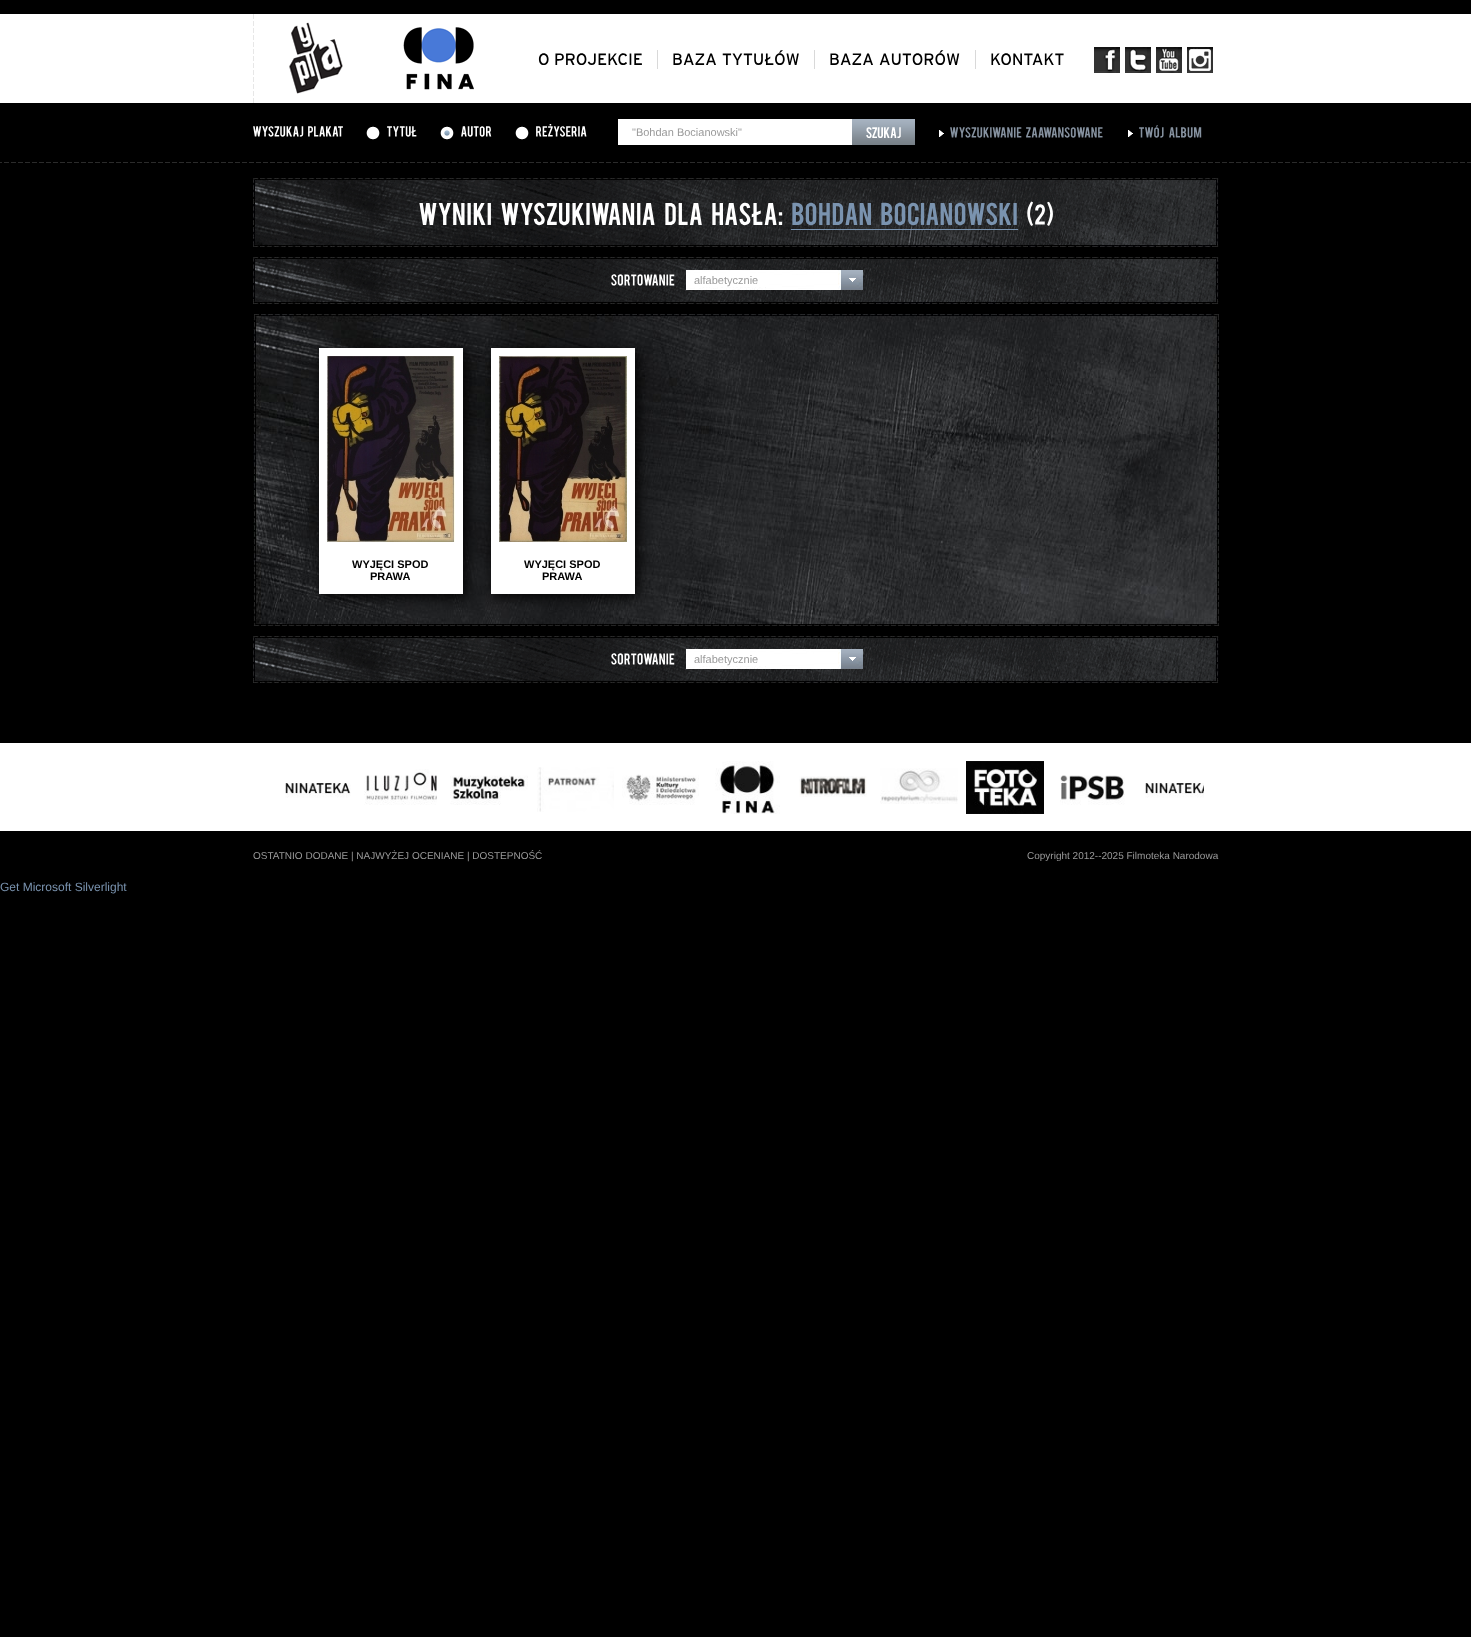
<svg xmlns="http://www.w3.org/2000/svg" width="1471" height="1637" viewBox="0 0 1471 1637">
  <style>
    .t1 { font: 11px Liberation Sans; fill: #9a9a9a; }
    .t2 { font: bold 11px Liberation Sans; fill: #000; }
    .t3 { font: 10px Liberation Sans; fill: #9a9a9a; }
    .t4 { font: 12px Liberation Sans; fill: #7a93af; }
  </style>
  <rect width="100%" height="100%" fill="#000"/>
  <rect x="0" y="14" width="1471" height="89" fill="#fff"/>
  <image x="253" y="14" width="90" height="89" href="images/1.png"/>
  <image x="403" y="27" width="71" height="63" href="images/2.png"/>
  <rect x="657" y="50" width="1" height="19" fill="#d9d9d9"/>
  <image x="538" y="53" width="11" height="12" href="images/3.png"/>
  <image x="555" y="53" width="87" height="12" href="images/4.png"/>
  <rect x="814" y="50" width="1" height="19" fill="#d9d9d9"/>
  <image x="673" y="53" width="43" height="12" href="images/5.png"/>
  <image x="722" y="50" width="77" height="15" href="images/6.png"/>
  <rect x="975" y="50" width="1" height="19" fill="#d9d9d9"/>
  <image x="830" y="53" width="43" height="12" href="images/5.png"/>
  <image x="879" y="50" width="81" height="15" href="images/7.png"/>
  <image x="991" y="53" width="73" height="12" href="images/8.png"/>
  <image x="1094" y="47" width="26" height="26" href="images/9.png"/>
  <image x="1125" y="47" width="26" height="26" href="images/10.png"/>
  <image x="1156" y="47" width="26" height="26" href="images/11.png"/>
  <image x="1187" y="47" width="26" height="26" href="images/12.png"/>
  <image x="0" y="162" width="1471" height="1" href="images/13.png"/>
  <image x="253" y="126" width="51" height="11" href="images/14.png"/>
  <image x="308" y="126" width="35" height="11" href="images/15.png"/>
  <image x="366" y="126" width="14" height="14" href="images/16.png"/>
  <image x="387" y="126" width="30" height="11" href="images/17.png"/>
  <image x="440" y="126" width="14" height="14" href="images/18.png"/>
  <image x="461" y="126" width="31" height="11" href="images/19.png"/>
  <image x="515" y="126" width="14" height="14" href="images/16.png"/>
  <image x="536" y="124" width="51" height="13" href="images/20.png"/>
  <rect x="618" y="119" width="234" height="26" fill="#fff"/>
  <text x="632" y="136" class="t1">"Bohdan Bocianowski"</text>
  <image x="852" y="119" width="63" height="26" href="images/21.png"/>
  <image x="939" y="130" width="5" height="7" href="images/22.png"/>
  <image x="950" y="127" width="72" height="11" href="images/23.png"/>
  <image x="1026" y="127" width="77" height="11" href="images/24.png"/>
  <image x="1128" y="130" width="5" height="7" href="images/25.png"/>
  <image x="1139" y="125" width="25" height="13" href="images/26.png"/>
  <image x="1169" y="127" width="33" height="11" href="images/27.png"/>
  <image x="253" y="178" width="966" height="69" href="images/28.png"/>
  <image x="419" y="203" width="72" height="22" href="images/29.png"/>
  <image x="501" y="202" width="154" height="24" href="images/30.png"/>
  <image x="665" y="203" width="37" height="22" href="images/31.png"/>
  <image x="712" y="202" width="71" height="24" href="images/32.png"/>
  <rect x="791" y="229" width="227" height="1" fill="#7a93af"/>
  <image x="792" y="202" width="79" height="24" href="images/33.png"/>
  <image x="881" y="202" width="136" height="24" href="images/34.png"/>
  <image x="1027" y="201" width="26" height="25" href="images/35.png"/>
  <image x="253" y="257" width="966" height="47" href="images/36.png"/>
  <image x="611" y="274" width="64" height="12" href="images/37.png"/>
  <image x="686" y="270" width="177" height="20" href="images/38.png"/>
  <text x="694" y="284" class="t1">alfabetycznie</text>
  <image x="253" y="314" width="966" height="312" href="images/39.png"/>
  <image x="254" y="624" width="965" height="2" href="images/40.png"/>
  <rect x="322" y="351" width="144" height="246" fill="#000" filter="blur(7px)"/>
  <rect x="319" y="348" width="144" height="246" fill="#fff"/>
  <image x="327" y="356" width="128" height="186" href="images/41.png"/>
  <text x="352" y="568" class="t2">WYJĘCI SPOD</text>
  <text x="370" y="580" class="t2">PRAWA</text>
  <rect x="494" y="351" width="144" height="246" fill="#000" filter="blur(7px)"/>
  <rect x="491" y="348" width="144" height="246" fill="#fff"/>
  <image x="499" y="356" width="128" height="186" href="images/42.png"/>
  <text x="524" y="568" class="t2">WYJĘCI SPOD</text>
  <text x="542" y="580" class="t2">PRAWA</text>
  <image x="253" y="636" width="966" height="47" href="images/36.png"/>
  <image x="611" y="653" width="64" height="12" href="images/37.png"/>
  <image x="686" y="649" width="177" height="20" href="images/38.png"/>
  <text x="694" y="663" class="t1">alfabetycznie</text>
  <rect x="0" y="743" width="1471" height="88" fill="#fff"/>
  <image x="285" y="783" width="66" height="15" href="images/43.png"/>
  <image x="364" y="769" width="73" height="36" href="images/44.png"/>
  <image x="450" y="775" width="78" height="30" href="images/45.png"/>
  <image x="537" y="767" width="77" height="45" href="images/46.png"/>
  <image x="622" y="774" width="77" height="31" href="images/47.png"/>
  <image x="715" y="761" width="65" height="53" href="images/48.png"/>
  <image x="799" y="776" width="68" height="21" href="images/49.png"/>
  <image x="880" y="768" width="78" height="36" href="images/50.png"/>
  <image x="966" y="761" width="78" height="53" href="images/51.png"/>
  <image x="1060" y="775" width="65" height="30" href="images/52.png"/>
  <image x="1145" y="783" width="59" height="15" href="images/53.png"/>
  <text x="253" y="859" class="t3">OSTATNIO DODANE | NAJWYŻEJ OCENIANE | DOSTEPNOŚĆ</text>
  <text x="1027" y="859" class="t3">Copyright 2012--2025 Filmoteka Narodowa</text>
  <text x="0" y="891" class="t4">Get Microsoft Silverlight</text>
</svg>
